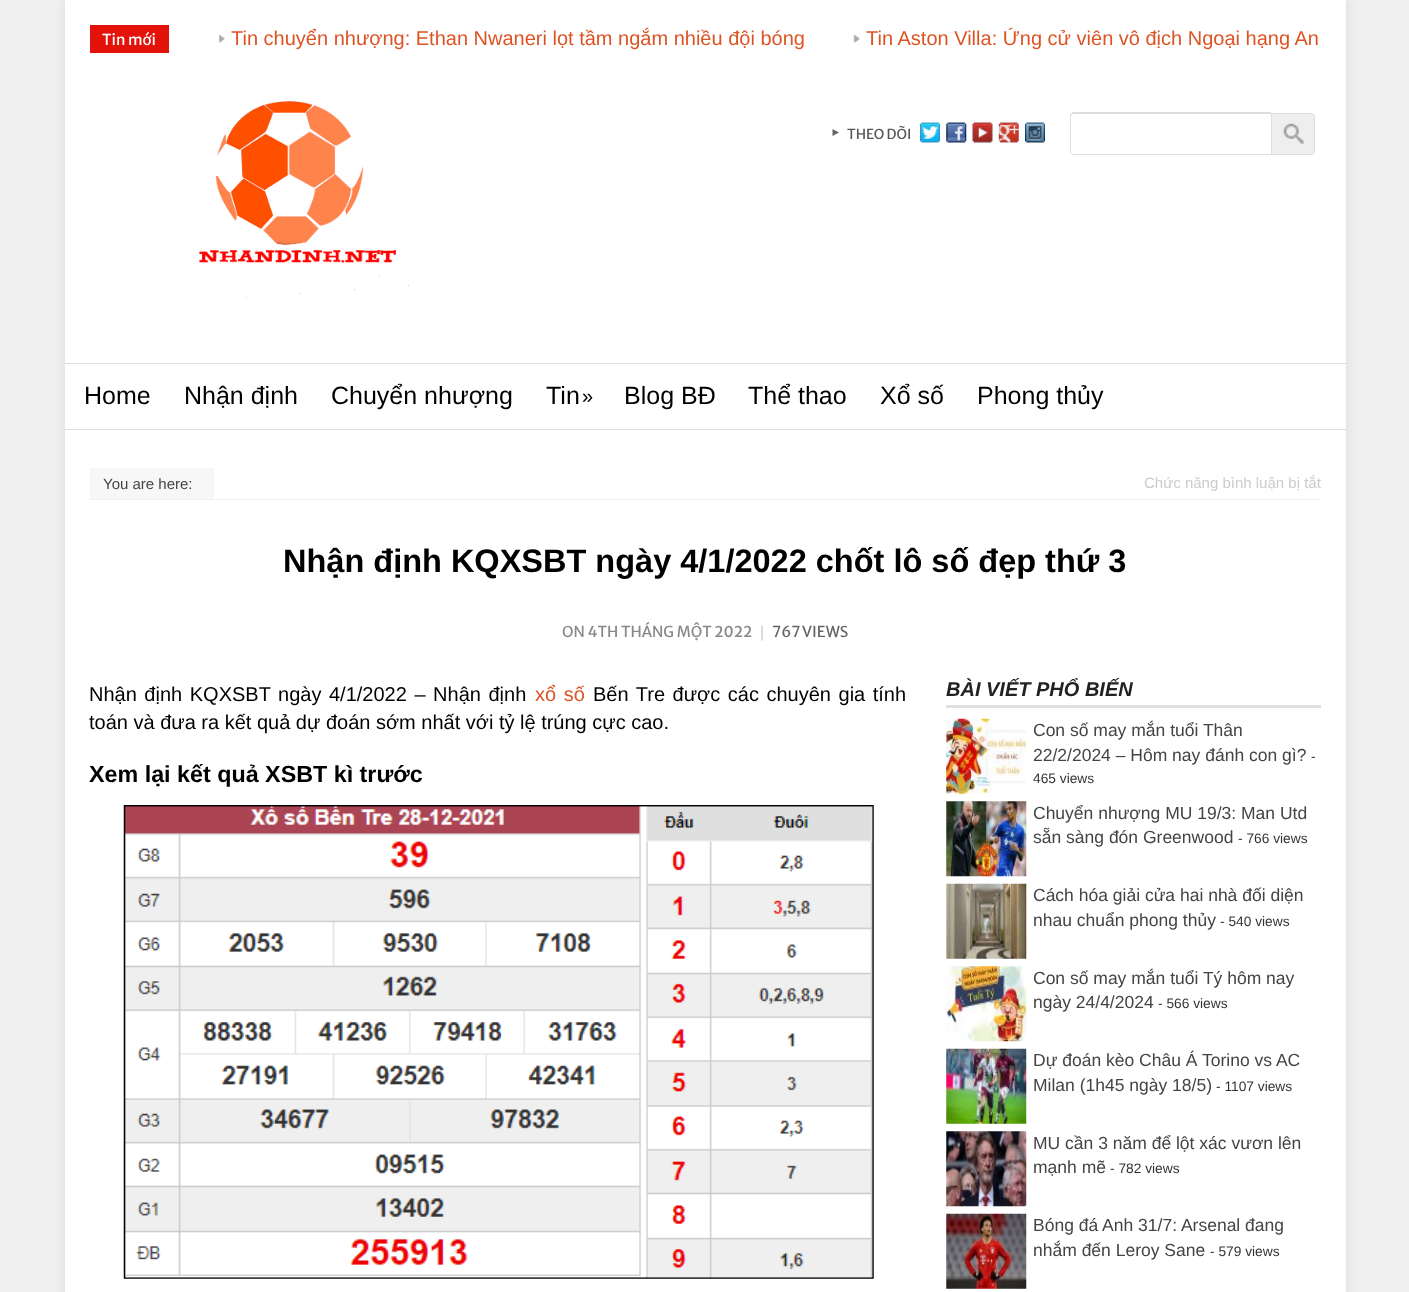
<svg xmlns="http://www.w3.org/2000/svg" width="1409" height="1292" viewBox="0 0 1409 1292">
  <style>
    .t1 { font: 15px Merriweather Sans; fill: #fff; }
    .t2 { font: 20px Liberation Sans; fill: #dd5424; }
    .t3 { font: 13.75px Merriweather Sans; fill: #555; }
    .t4 { font: 25px Liberation Sans; fill: #000; }
    .t5 { font: 20px Liberation Sans; fill: #000; }
    .t6 { font: 15px Liberation Sans; fill: #444; }
    .t7 { font: 15px Liberation Sans; fill: #ccc; }
    .t8 { font: bold 32.5px Liberation Sans; fill: #000; }
    .t9 { font: 15px Merriweather Sans; fill: #888; }
    .t10 { font: 16px Liberation Sans; fill: #ccc; }
    .t11 { font: 15px Merriweather Sans; fill: #666; }
    .t12 { font: bold 23.3px Liberation Sans; fill: #000; }
    .t13 { font: italic bold 20px Liberation Sans; fill: #222; }
    .t14 { font: 17.5px Liberation Sans; fill: #444; }
    .t15 { font: 13.75px Liberation Sans; fill: #333; }
  </style>
  <rect width="100%" height="100%" fill="#f0f0f0"/>
  <rect x="64" y="-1" width="1284" height="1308" fill="#dfdfdf" filter="blur(5px)"/>
  <rect x="65" y="0" width="1281" height="1292" fill="#fff"/>
  <rect x="90" y="25" width="79" height="28" fill="#e3120b"/>
  <text x="102" y="45" class="t1">Tin mới</text>
  <image x="219" y="34" width="6" height="9" href="images/1.png"/>
  <text x="231" y="45" class="t2">Tin chuyển nhượng: Ethan Nwaneri lọt tầm ngắm nhiều đội bóng</text>
  <image x="853" y="34" width="7" height="9" href="images/2.png"/>
  <text x="866" y="45" class="t2">Tin Aston Villa: Ứng cử viên vô địch Ngoại hạng An</text>
  <image x="199" y="101" width="210" height="198" href="images/3.png"/>
  <path d="M832.5 136V129L839 132.5Z" fill="#666"/>
  <text x="847" y="139" class="t3">THEO DÕI</text>
  <image x="920" y="122" width="20" height="21" href="images/4.png"/>
  <image x="946" y="122" width="21" height="21" href="images/5.png"/>
  <image x="972" y="122" width="21" height="21" href="images/6.png"/>
  <image x="998" y="122" width="21" height="21" href="images/7.png"/>
  <image x="1025" y="122" width="20" height="21" href="images/8.png"/>
  <path d="M1074 112H1271V155H1074C1072 155 1070 153 1070 151V116C1070 114 1072 112 1074 112ZM1074 114H1271V154H1074C1072 154 1071 153 1071 151V116C1071 115 1072 114 1074 114Z" fill="#ddd" fill-rule="evenodd"/>
  <path d="M1271 113H1311C1313 113 1315 115 1315 117V151C1315 153 1313 155 1311 155H1271Z" fill="#eee"/>
  <image x="1283" y="123" width="21" height="21" href="images/9.png"/>
  <path d="M1271.5 113.5H1311C1313 113.5 1314.5 115 1314.5 117V151C1314.5 153 1313 154.5 1311 154.5H1271.5Z" fill="none" stroke="#ddd"/>
  <rect x="65" y="363" width="1281" height="1" fill="#ddd"/>
  <rect x="65" y="429" width="1281" height="1" fill="#ddd"/>
  <text x="84" y="404" class="t4">Home</text>
  <text x="184" y="404" class="t4">Nhận định</text>
  <text x="331" y="404" class="t4">Chuyển nhượng</text>
  <text x="546" y="404" class="t4">Tin</text>
  <text x="582" y="403" class="t5">»</text>
  <text x="624" y="404" class="t4">Blog BĐ</text>
  <text x="748" y="404" class="t4">Thể thao</text>
  <text x="880" y="404" class="t4">Xổ số</text>
  <text x="977" y="404" class="t4">Phong thủy</text>
  <rect x="90" y="499" width="1231" height="1" fill="#f1f1f1"/>
  <rect x="90" y="468" width="124" height="31" fill="#f7f7f7"/>
  <text x="103" y="489" class="t6">You are here:</text>
  <text x="1144" y="488" class="t7">Chức năng bình luận bị tắt</text>
  <text x="283" y="572" class="t8">Nhận định KQXSBT ngày 4/1/2022 chốt lô số đẹp thứ 3</text>
  <text x="562" y="637" class="t9">ON 4TH THÁNG MỘT 2022</text>
  <text x="760" y="637" class="t10">|</text>
  <text x="772" y="637" class="t11">767</text>
  <text x="802" y="637" class="t11">VIEWS</text>
  <text x="89" y="701" word-spacing="2" class="t5">Nhận định KQXSBT ngày 4/1/2022 – Nhận định</text>
  <text x="535" y="701" word-spacing="2" class="t2">xổ số</text>
  <text x="593" y="701" word-spacing="2" class="t5">Bến Tre được các chuyên gia tính</text>
  <text x="89" y="729" class="t5">toán và đưa ra kết quả dự đoán sớm nhất với tỷ lệ trúng cực cao.</text>
  <text x="89" y="782" class="t12">Xem lại kết quả XSBT kì trước</text>
  <image x="123" y="805" width="751" height="474" href="images/10.png"/>
  <rect x="946" y="705" width="375" height="3" fill="#e0e0e0"/>
  <text x="946" y="696" class="t13">BÀI VIẾT PHỔ BIẾN</text>
  <image x="946" y="718" width="81" height="76" href="images/11.png"/>
  <text x="1033" y="736" class="t14">Con số may mắn tuổi Thân</text>
  <text x="1033" y="761" class="t14">22/2/2024 – Hôm nay đánh con gì?</text>
  <text x="1311" y="761" class="t15">-</text>
  <text x="1033" y="783" class="t15">465 views</text>
  <image x="946" y="801" width="81" height="76" href="images/12.png"/>
  <text x="1033" y="819" class="t14">Chuyển nhượng MU 19/3: Man Utd</text>
  <text x="1033" y="843" class="t14">sẵn sàng đón Greenwood</text>
  <text x="1238" y="843" class="t15">- 766 views</text>
  <image x="946" y="883" width="81" height="76" href="images/13.png"/>
  <text x="1033" y="901" class="t14">Cách hóa giải cửa hai nhà đối diện</text>
  <text x="1033" y="926" class="t14">nhau chuẩn phong thủy</text>
  <text x="1220" y="926" class="t15">- 540 views</text>
  <image x="946" y="966" width="81" height="76" href="images/14.png"/>
  <text x="1033" y="984" class="t14">Con số may mắn tuổi Tý hôm nay</text>
  <text x="1033" y="1008" class="t14">ngày 24/4/2024</text>
  <text x="1158" y="1008" class="t15">- 566 views</text>
  <image x="946" y="1048" width="81" height="76" href="images/15.png"/>
  <text x="1033" y="1066" class="t14">Dự đoán kèo Châu Á Torino vs AC</text>
  <text x="1033" y="1091" class="t14">Milan (1h45 ngày 18/5)</text>
  <text x="1216" y="1091" class="t15">- 1107 views</text>
  <image x="946" y="1131" width="81" height="76" href="images/16.png"/>
  <text x="1033" y="1149" class="t14">MU cần 3 năm để lột xác vươn lên</text>
  <text x="1033" y="1173" class="t14">mạnh mẽ</text>
  <text x="1110" y="1173" class="t15">- 782 views</text>
  <image x="946" y="1213" width="81" height="76" href="images/17.png"/>
  <text x="1033" y="1231" class="t14">Bóng đá Anh 31/7: Arsenal đang</text>
  <text x="1033" y="1256" class="t14">nhắm đến Leroy Sane</text>
  <text x="1210" y="1256" class="t15">- 579 views</text>
</svg>
